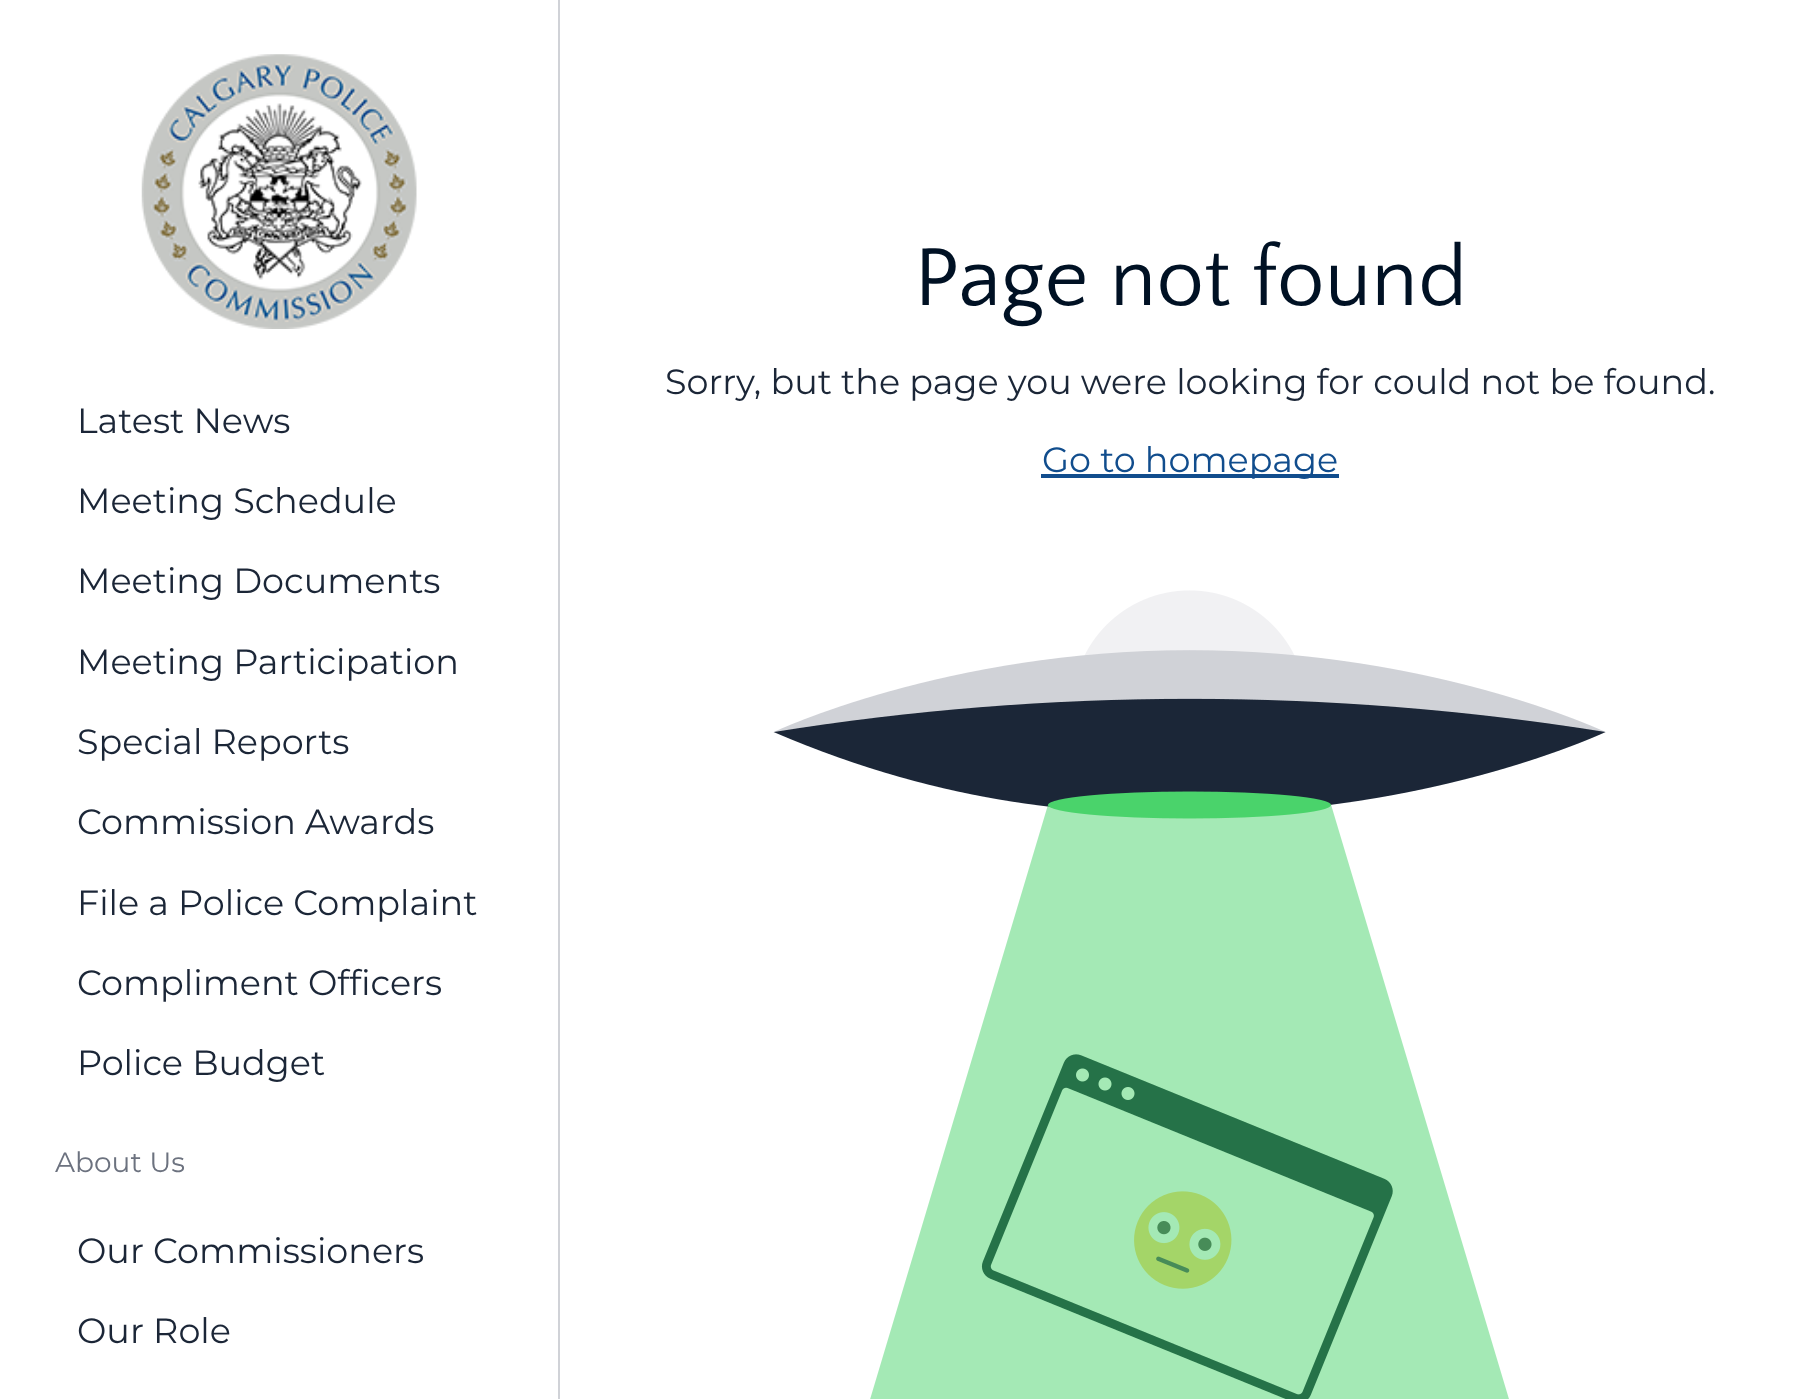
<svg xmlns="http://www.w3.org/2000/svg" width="1820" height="1399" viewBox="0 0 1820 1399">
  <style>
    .t1 { font: 85.5px Quattrocento Sans; fill: #001124; }
    .t2 { font: 35px Montserrat; fill: #1b2637; }
    .t3 { font: 35px Montserrat; fill: #114d8d; }
    .t4 { font: 28px Montserrat; fill: #6c727f; }
  </style>
  <rect width="100%" height="100%" fill="#fff"/>
  <text x="914" y="305" class="t1">Page not found</text>
  <text x="665" y="394" class="t2">Sorry, but the page you were looking for could not be found.</text>
  <rect x="1041" y="474" width="298" height="4" fill="#114d8d"/>
  <text x="1042" y="472" class="t3">Go to homepage</text>
  <image x="773" y="590" width="833" height="809" href="images/1.png"/>
  <rect x="558" y="0" width="2" height="1399" fill="#d0d2d7"/>
  <image x="141" y="54" width="276" height="275" href="images/2.png"/>
  <text x="77" y="433" class="t2">Latest News</text>
  <text x="77" y="513" class="t2">Meeting Schedule</text>
  <text x="77" y="593" class="t2">Meeting Documents</text>
  <text x="77" y="674" class="t2">Meeting Participation</text>
  <text x="77" y="754" class="t2">Special Reports</text>
  <text x="77" y="834" class="t2">Commission Awards</text>
  <text x="77" y="915" class="t2">File a Police Complaint</text>
  <text x="77" y="995" class="t2">Compliment Officers</text>
  <text x="77" y="1075" class="t2">Police Budget</text>
  <text x="55" y="1172" class="t4">About Us</text>
  <text x="77" y="1263" class="t2">Our Commissioners</text>
  <text x="77" y="1343" class="t2">Our Role</text>
</svg>
